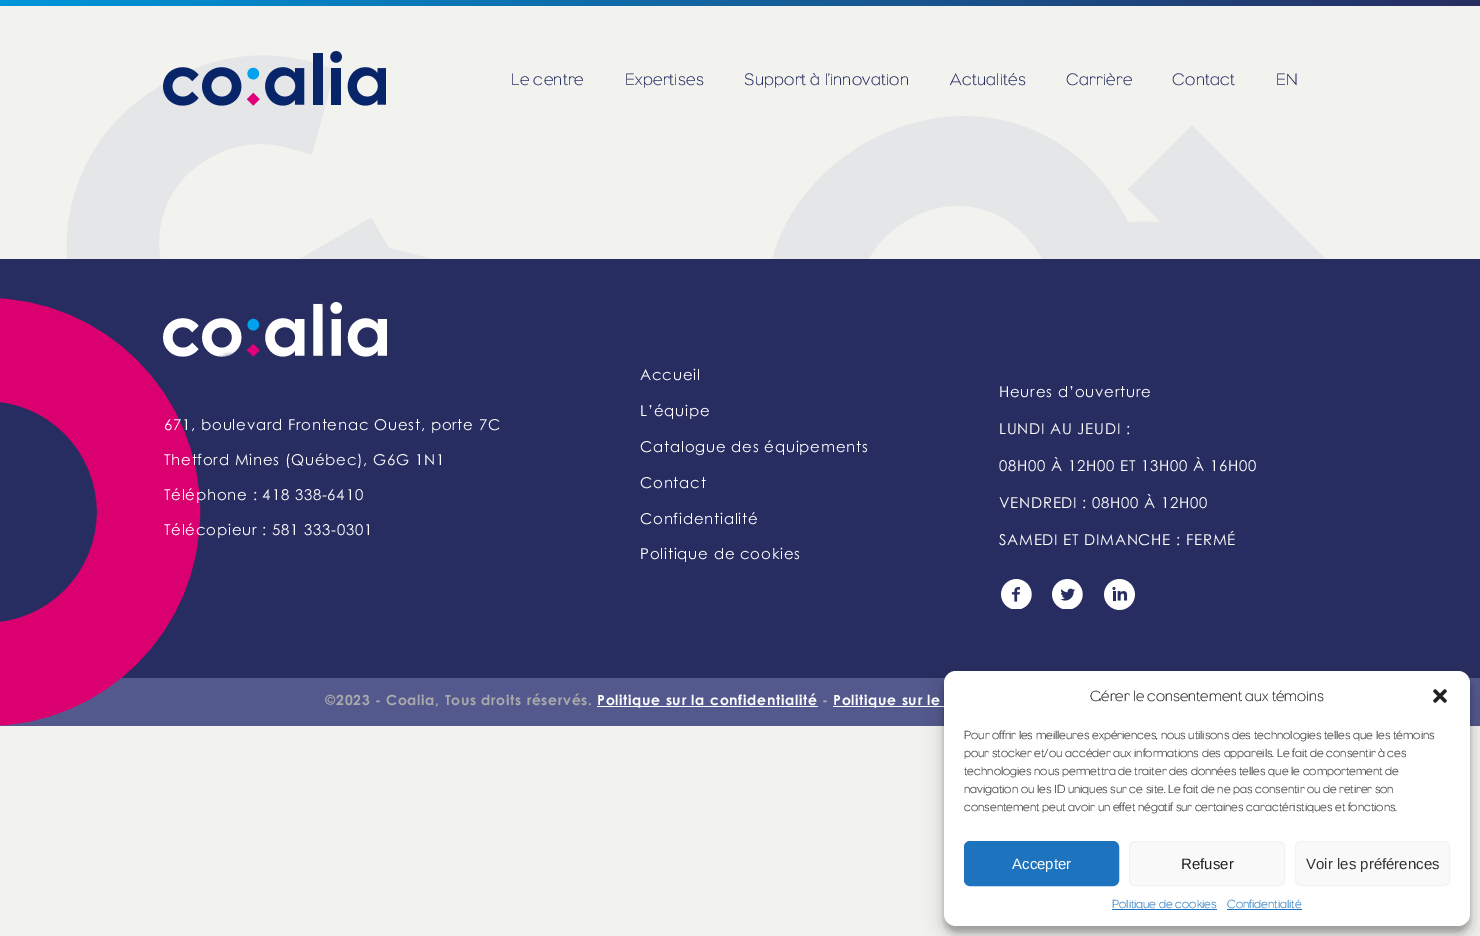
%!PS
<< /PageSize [1480 936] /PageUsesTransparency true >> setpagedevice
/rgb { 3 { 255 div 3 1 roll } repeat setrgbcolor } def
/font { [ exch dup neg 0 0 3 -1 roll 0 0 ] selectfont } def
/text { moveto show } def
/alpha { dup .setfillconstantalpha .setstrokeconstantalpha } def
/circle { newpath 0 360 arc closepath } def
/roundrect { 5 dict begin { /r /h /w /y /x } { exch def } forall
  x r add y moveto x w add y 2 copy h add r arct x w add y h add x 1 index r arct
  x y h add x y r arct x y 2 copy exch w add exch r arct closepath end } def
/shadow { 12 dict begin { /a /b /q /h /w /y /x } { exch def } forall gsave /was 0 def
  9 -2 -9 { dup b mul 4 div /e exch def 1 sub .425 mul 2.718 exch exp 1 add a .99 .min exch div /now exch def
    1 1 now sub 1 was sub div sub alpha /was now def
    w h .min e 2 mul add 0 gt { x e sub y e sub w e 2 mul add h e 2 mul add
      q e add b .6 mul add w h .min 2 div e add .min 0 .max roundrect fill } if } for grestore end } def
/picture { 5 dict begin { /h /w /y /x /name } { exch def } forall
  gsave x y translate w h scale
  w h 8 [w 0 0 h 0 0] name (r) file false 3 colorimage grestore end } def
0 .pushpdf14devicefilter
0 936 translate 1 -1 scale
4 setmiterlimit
242 242 239 rgb
0 0 1480 936 rectfill
gsave 0 0 moveto 1480 0 rlineto 0 6 rlineto -1480 0 rlineto closepath clip newpath
<< /ShadingType 2 /ColorSpace /DeviceRGB /Coords [1480 3 0 3] /Extend [true true] /Function << /FunctionType 2 /Domain [0 1] /C0 [0.157 0.176 0.38] /C1 [0 0.592 0.855] /N 1 >> >> shfill grestore
(img_01.rgb) 66 55 366 204 picture
(img_02.rgb) 163 51 223 55 picture
(img_03.rgb) 299 218 97 41 picture
228 230 231 rgb
1049 465 moveto -38 22 -82 32 -126 26 rcurveto -49 -8 -92 -34 -121 -75 rcurveto -67 -95 -38 -214 62 -272 rcurveto 100 -58 217 -23 266 82 rcurveto 21 46 22 96 4 143 rcurveto -16 41 -47 74 -85 96 rcurveto closepath 1005 389 moveto 20 -11 36 -28 44 -50 rcurveto 9 -24 7 -50 -4 -74 rcurveto -25 -54 -85 -76 -137 -45 rcurveto -20 11 -36 28 -44 49 rcurveto -9 25 -7 51 4 75 rcurveto 25 54 85 75 137 45 rcurveto closepath fill
(img_04.rgb) 1046 125 280 134 picture
40 45 97 rgb
0 259 1480 419 rectfill
84 89 141 rgb
0 678 1480 48 rectfill
218 0 112 rgb
103 setlinewidth
-14 512 162.5 circle stroke
(img_05.rgb) 163 302 224 55 picture
(img_06.rgb) 1001 579 31 30 picture
(img_07.rgb) 1052 579 31 30 picture
(img_08.rgb) 1104 579 31 31 picture
255 255 255 rgb
597 706 221 1 rectfill
833 706 111 1 rectfill
0 0 0 rgb
944 677 526 255 12 3 0.23 shadow
944 681 526 255 12 10 0.19 shadow
255 255 255 rgb
944 671 526 255 12 roundrect fill
(img_09.rgb) 1433 689 14 14 picture
30 115 190 rgb
964.5 841.5 154 44 5.5 roundrect gsave fill grestore
1 setlinewidth
stroke
249 249 249 rgb
1129.5 841.5 155 44 5.5 roundrect gsave fill grestore
242 242 242 rgb
stroke
249 249 249 rgb
1295.5 841.5 154 44 5.5 roundrect gsave fill grestore
242 242 242 rgb
stroke
30 115 190 rgb
1112 909 105 1 rectfill
1227 909 75 1 rectfill
/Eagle-Light 17 font
40 45 97 rgb
511 85 moveto 0.3 0 (Le centre) ashow
625 85 moveto 0.3 0 (Expertises) ashow
744 85 moveto 0.3 0 (Support à l’innovation) ashow
950 85 moveto 0.3 0 (Actualités) ashow
1066 85 moveto 0.3 0 (Carrière) ashow
1172 85 moveto 0.3 0 (Contact) ashow
1276 85 moveto 0.3 0 (EN) ashow
/CenturyGothic-Regular 15 font
255 255 255 rgb
164 430 moveto 0.75 0 (671, boulevard Frontenac Ouest, porte 7C) ashow
164 465 moveto 0.75 0 (Thetford Mines \(Québec\), G6G 1N1) ashow
164 500 moveto 0.75 0 (Téléphone : 418 338-6410) ashow
164 535 moveto 0.75 0 (Télécopieur : 581 333-0301) ashow
640 380 moveto 0.75 0 (Accueil) ashow
640 416 moveto 0.75 0 (L’équipe) ashow
640 452 moveto 0.75 0 (Catalogue des équipements) ashow
640 488 moveto 0.75 0 (Contact) ashow
640 524 moveto 0.75 0 (Confidentialité) ashow
640 559 moveto 0.75 0 (Politique de cookies) ashow
999 397 moveto 0.75 0 (Heures d’ouverture) ashow
999 434 moveto 0.75 0 (LUNDI AU JEUDI :) ashow
999 471 moveto 0.75 0 (08H00 À 12H00 ET 13H00 À 16H00) ashow
999 508 moveto 0.75 0 (VENDREDI : 08H00 À 12H00) ashow
999 545 moveto 0.75 0 (SAMEDI ET DIMANCHE : FERMÉ) ashow
/CenturyGothic-Bold 14 font
170 170 170 rgb
325 705 moveto 0.7 0 (©2023 - Coalia, Tous droits réservés.) ashow
255 255 255 rgb
597 705 moveto 0.7 0 (Politique sur la confidentialité) ashow
170 170 170 rgb
822 705 moveto 0.7 0 (-) ashow
255 255 255 rgb
833 705 moveto 0.7 0 (Politique sur le) ashow
/Eagle-Light 15 font
34 34 34 rgb
(Gérer le consentement aux témoins) 1090 701 text
/Eagle-Light 12 font
(Pour offrir les meilleures expériences, nous utilisons des technologies telles que les témoins) 964 739 text
(pour stocker et/ou accéder aux informations des appareils. Le fait de consentir à ces) 964 757 text
(technologies nous permettra de traiter des données telles que le comportement de) 964 775 text
(navigation ou les ID uniques sur ce site. Le fait de ne pas consentir ou de retirer son) 964 793 text
(consentement peut avoir un effet négatif sur certaines caractéristiques et fonctions.) 964 811 text
/LiberationSans-Regular 15 font
255 255 255 rgb
(Accepter) 1012 869 text
34 34 34 rgb
(Refuser) 1181 869 text
51 51 51 rgb
(Voir les préférences) 1306 869 text
/Eagle-Light 12 font
30 115 190 rgb
(Politique de cookies) 1112 908 text
(Confidentialité) 1227 908 text
.poppdf14devicefilter showpage
